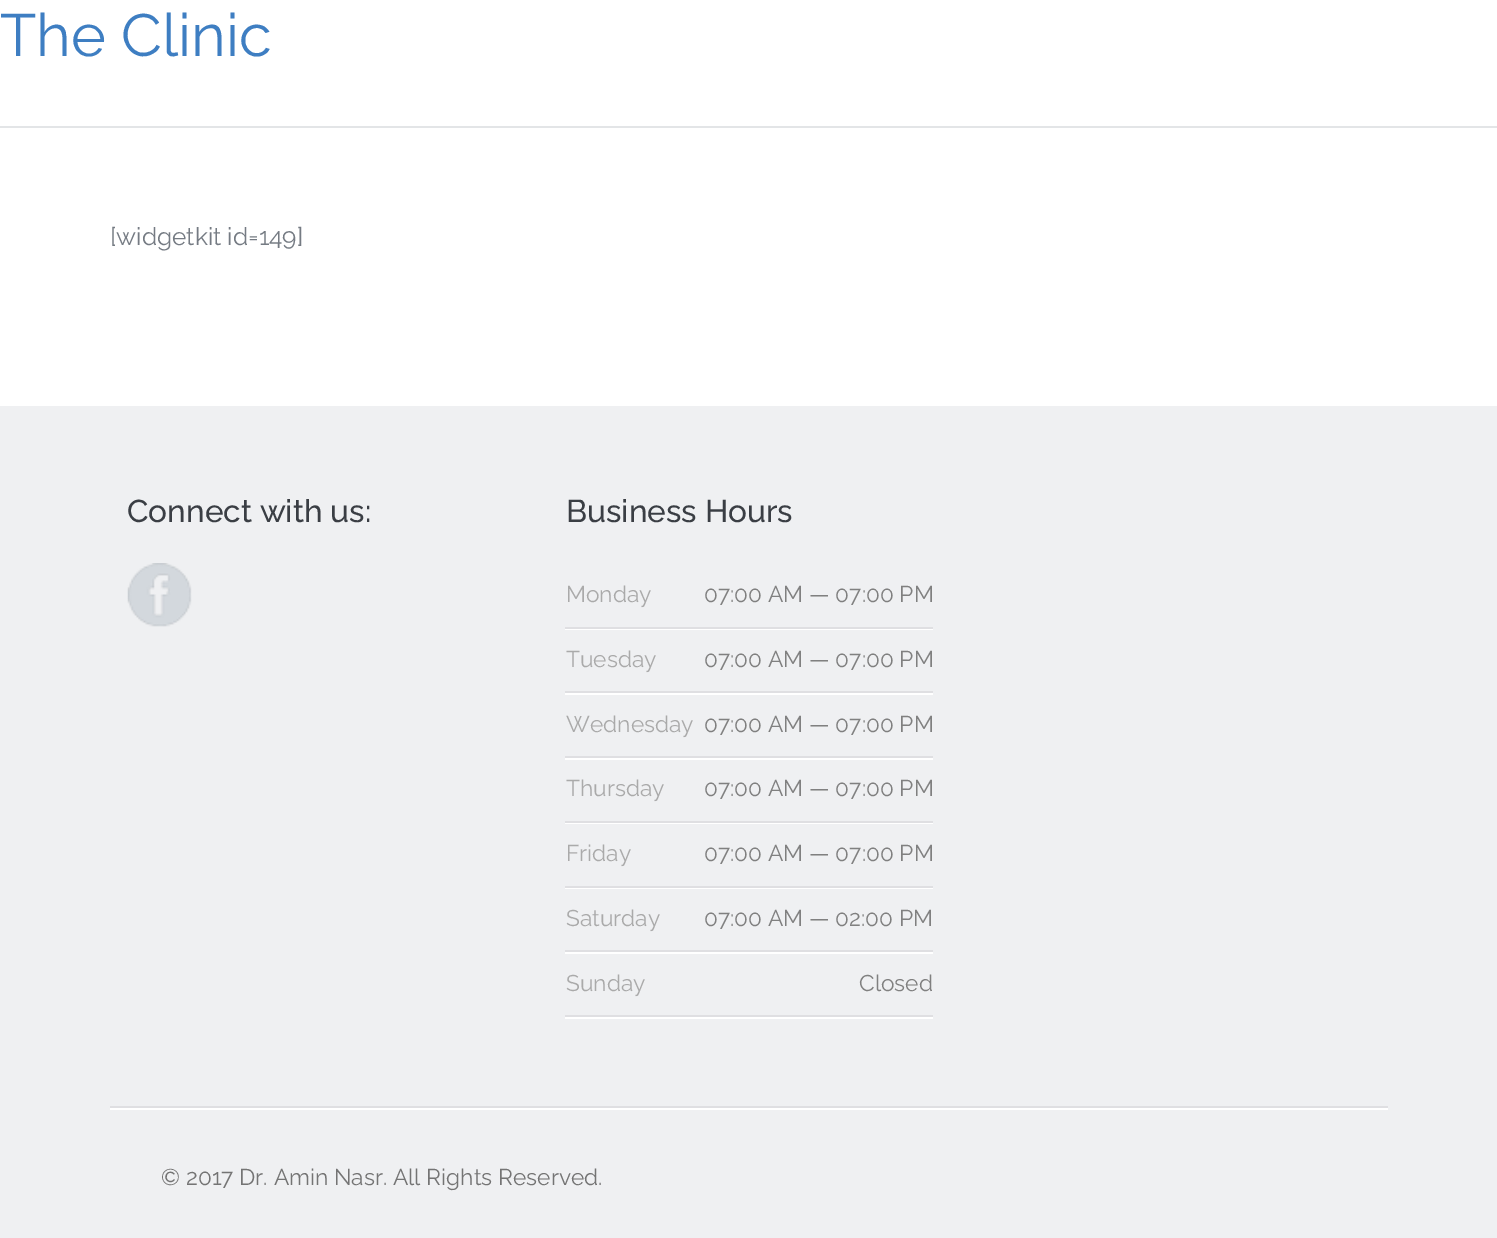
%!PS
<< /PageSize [1497 1238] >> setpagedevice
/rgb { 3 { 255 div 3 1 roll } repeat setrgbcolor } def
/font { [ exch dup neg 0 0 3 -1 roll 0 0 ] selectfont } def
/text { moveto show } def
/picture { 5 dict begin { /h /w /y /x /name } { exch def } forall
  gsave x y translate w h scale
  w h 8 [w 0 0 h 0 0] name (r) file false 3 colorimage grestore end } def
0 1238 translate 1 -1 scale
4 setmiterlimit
255 255 255 rgb
0 0 1497 1238 rectfill
227 229 231 rgb
0 126 1497 2 rectfill
239 240 242 rgb
0 406 1497 832 rectfill
255 255 255 rgb
110 408 moveto 0 702 rlineto 1278 0 rlineto 0 -702 rlineto 0 700 rlineto -1278 0 rlineto closepath fill
223 223 226 rgb
110 1106 1278 2 rectfill
(img_01.rgb) 127 563 65 64 picture
255 255 255 rgb
565 565 moveto 0 65 rlineto 368 0 rlineto 0 -65 rlineto 0 63 rlineto -368 0 rlineto closepath fill
223 223 226 rgb
565 627 368 2 rectfill
255 255 255 rgb
565 630 moveto 0 65 rlineto 368 0 rlineto 0 -65 rlineto 0 63 rlineto -368 0 rlineto closepath fill
223 223 226 rgb
565 691 368 2 rectfill
255 255 255 rgb
565 695 moveto 0 65 rlineto 368 0 rlineto 0 -65 rlineto 0 63 rlineto -368 0 rlineto closepath fill
223 223 226 rgb
565 756 368 2 rectfill
255 255 255 rgb
565 760 moveto 0 64 rlineto 368 0 rlineto 0 -64 rlineto 0 62 rlineto -368 0 rlineto closepath fill
223 223 226 rgb
565 821 368 2 rectfill
255 255 255 rgb
565 824 moveto 0 65 rlineto 368 0 rlineto 0 -65 rlineto 0 63 rlineto -368 0 rlineto closepath fill
223 223 226 rgb
565 886 368 2 rectfill
255 255 255 rgb
565 889 moveto 0 65 rlineto 368 0 rlineto 0 -65 rlineto 0 63 rlineto -368 0 rlineto closepath fill
223 223 226 rgb
565 950 368 2 rectfill
255 255 255 rgb
565 954 moveto 0 65 rlineto 368 0 rlineto 0 -65 rlineto 0 63 rlineto -368 0 rlineto closepath fill
223 223 226 rgb
565 1015 368 2 rectfill
/Raleway-Regular 59.5 font
62 126 194 rgb
(The Clinic) 0 56 text
/Raleway-Regular 24.5 font
117 123 131 rgb
([widgetkit id=149]) 110 245 text
/Raleway-Medium 31.5 font
58 62 68 rgb
(Connect with us:) 127 522 text
(Business Hours) 566 522 text
/Raleway-Regular 22.75 font
170 170 170 rgb
(Monday) 566 602 text
128 128 128 rgb
(07:00 AM — 07:00 PM) 704 602 text
170 170 170 rgb
(Tuesday) 566 667 text
128 128 128 rgb
(07:00 AM — 07:00 PM) 704 667 text
170 170 170 rgb
(Wednesday) 566 732 text
128 128 128 rgb
(07:00 AM — 07:00 PM) 704 732 text
170 170 170 rgb
(Thursday) 566 796 text
128 128 128 rgb
(07:00 AM — 07:00 PM) 704 796 text
170 170 170 rgb
(Friday) 566 861 text
128 128 128 rgb
(07:00 AM — 07:00 PM) 704 861 text
170 170 170 rgb
(Saturday) 566 926 text
128 128 128 rgb
(07:00 AM — 02:00 PM) 704 926 text
170 170 170 rgb
(Sunday) 566 991 text
128 128 128 rgb
(Closed) 859 991 text
116 116 116 rgb
(© 2017 Dr. Amin Nasr. All Rights Reserved.) 161 1185 text
showpage
